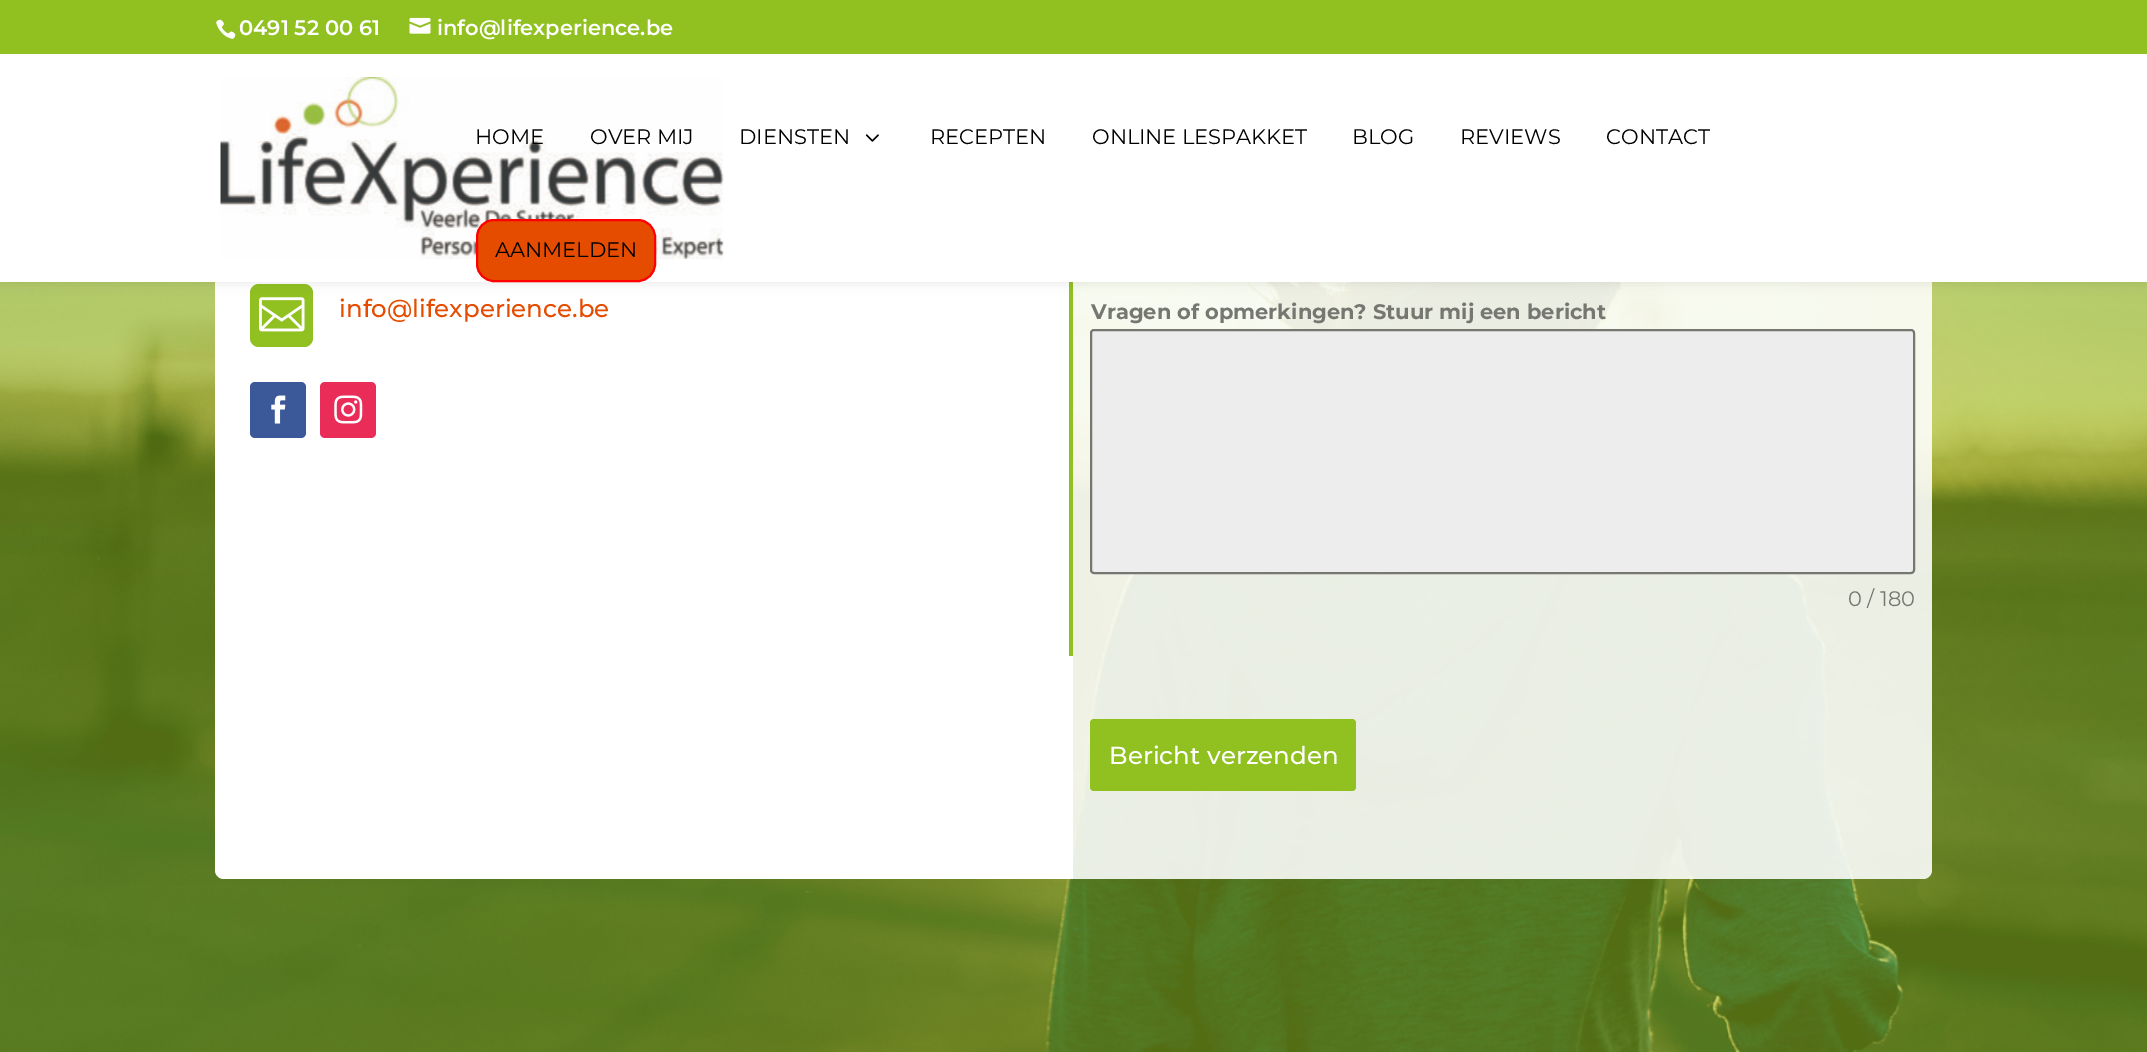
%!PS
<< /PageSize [2147 1052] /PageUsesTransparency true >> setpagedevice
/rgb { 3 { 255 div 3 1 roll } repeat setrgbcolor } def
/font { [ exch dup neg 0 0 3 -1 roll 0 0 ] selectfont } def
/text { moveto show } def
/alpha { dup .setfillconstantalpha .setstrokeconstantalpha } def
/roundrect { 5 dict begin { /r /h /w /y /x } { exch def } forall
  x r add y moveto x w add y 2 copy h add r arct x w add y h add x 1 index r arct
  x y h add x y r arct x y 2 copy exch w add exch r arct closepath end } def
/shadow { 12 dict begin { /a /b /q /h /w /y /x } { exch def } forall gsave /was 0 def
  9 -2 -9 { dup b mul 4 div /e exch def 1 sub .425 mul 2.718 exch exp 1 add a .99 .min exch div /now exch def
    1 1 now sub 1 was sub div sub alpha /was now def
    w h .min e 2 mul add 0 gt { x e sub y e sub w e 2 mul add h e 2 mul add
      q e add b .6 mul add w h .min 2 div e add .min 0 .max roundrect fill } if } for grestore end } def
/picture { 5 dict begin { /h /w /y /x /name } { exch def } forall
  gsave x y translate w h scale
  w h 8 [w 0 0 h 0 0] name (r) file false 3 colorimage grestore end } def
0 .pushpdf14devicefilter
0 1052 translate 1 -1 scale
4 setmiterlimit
255 255 255 rgb
0 0 2147 1052 rectfill
(img_05.rgb) 0 282 2147 770 picture
224 -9 moveto 420 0 rlineto 0 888 rlineto -420 0 rlineto -5 0 -9 -4 -9 -9 rcurveto 0 -870 rlineto 0 -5 4 -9 9 -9 rcurveto closepath fill
145 192 33 rgb
259 284 moveto -5 0 -9 4 -9 9 rcurveto 0 45 rlineto 0 5 4 9 9 9 rcurveto 45 0 rlineto 5 0 9 -4 9 -9 rcurveto 0 -45 rlineto 0 -5 -4 -9 -9 -9 rcurveto closepath fill
(img_06.rgb) 259 297 46 35 picture
255 255 255 rgb
644 282 429 597 rectfill
145 192 33 rgb
1069 282 4 374 rectfill
0.88 alpha
255 255 255 rgb
1073 -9 moveto 850 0 rlineto 5 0 9 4 9 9 rcurveto 0 870 rlineto 0 5 -4 9 -9 9 rcurveto -850 0 rlineto closepath fill
1 alpha
0 0 0 rgb
0 54 2147 228 0 6 0.1 shadow
145 192 33 rgb
0 0 2147 54 rectfill
(img_01.rgb) 216 19 20 20 picture
(img_02.rgb) 409 17 22 17 picture
255 255 255 rgb
0 54 2147 228 rectfill
(img_03.rgb) 220 77 504 182 picture
(img_04.rgb) 865 134 14 8 picture
229 76 0 rgb
477 220 178 61 17 roundrect gsave fill grestore
255 0 0 rgb
2 setlinewidth
stroke
59 89 152 rgb
250 382 56 56 5 roundrect fill
(img_07.rgb) 271 395 15 29 picture
234 44 89 rgb
320 382 56 56 5 roundrect fill
(img_08.rgb) 334 395 29 29 picture
237 237 237 rgb
1091 330 823 243 3 roundrect gsave fill grestore
119 119 113 rgb
stroke
145 192 33 rgb
1090 719 266 72 4 roundrect fill
/Montserrat-SemiBold 21 font
255 255 255 rgb
(0491 52 00 61) 239 35 text
(info@lifexperience.be) 437 35 text
/Montserrat-Regular 21 font
0 0 0 rgb
(HOME) 475 144 text
(OVER MIJ) 590 144 text
(DIENSTEN) 739 144 text
(RECEPTEN) 930 144 text
(ONLINE LESPAKKET) 1092 144 text
(BLOG) 1352 144 text
(REVIEWS) 1460 144 text
(CONTACT) 1606 144 text
(AANMELDEN) 495 257 text
/Montserrat-Medium 24.5 font
229 76 0 rgb
(info@lifexperience.be) 339 317 text
/Montserrat-Bold 21 font
119 119 113 rgb
(Vragen of opmerkingen? Stuur mij een bericht) 1091 319 text
/Montserrat-Regular 21 font
(0 / 180) 1848 606 text
/Montserrat-Medium 24.5 font
255 255 255 rgb
(Bericht verzenden) 1109 764 text
.poppdf14devicefilter showpage
